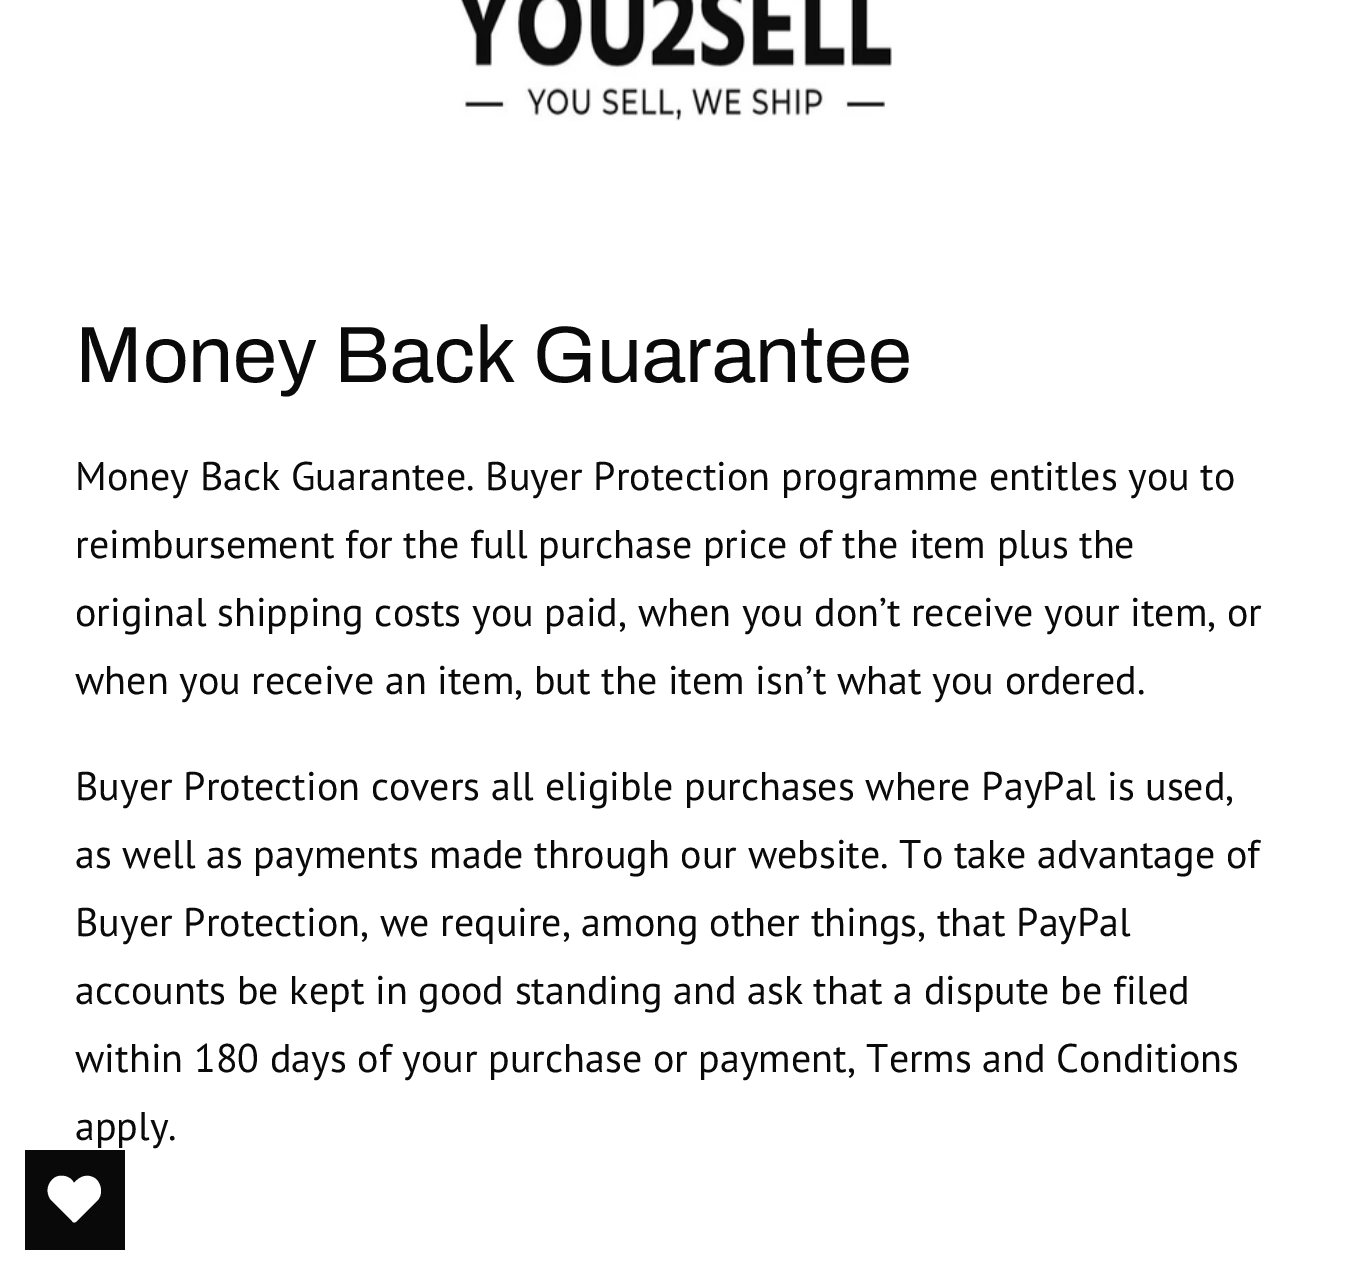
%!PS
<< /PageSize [1349 1274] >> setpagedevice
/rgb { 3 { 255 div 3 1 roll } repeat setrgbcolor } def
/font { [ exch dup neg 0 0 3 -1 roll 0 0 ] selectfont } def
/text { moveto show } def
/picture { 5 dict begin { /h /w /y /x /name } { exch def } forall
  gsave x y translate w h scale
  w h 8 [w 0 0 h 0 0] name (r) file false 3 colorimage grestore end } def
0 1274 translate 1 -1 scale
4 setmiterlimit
255 255 255 rgb
0 0 1349 1274 rectfill
(img_01.rgb) 459 0 433 121 picture
10 9 10 rgb
25 1150 100 100 rectfill
255 255 255 rgb
96 1179 moveto -8 -6 -16 -3 -22 4 rcurveto -2 -3 rlineto -5 -5 -14 -6 -19 -1 rcurveto -7 6 -7 16 -1 22 rcurveto 20 20 rlineto 1 2 3 2 5 0 rcurveto 20 -20 rlineto 6 -6 5 -16 -1 -22 rcurveto closepath fill
/Archivo-Regular 80 font
10 10 10 rgb
(Money Back Guarantee) 75 382 text
/PTSans-Regular 40 font
(Money Back Guarantee. Buyer Protection programme entitles you to) 75 490 text
(reimbursement for the full purchase price of the item plus the) 75 558 text
(original shipping costs you paid, when you don’t receive your item, or) 75 626 text
(when you receive an item, but the item isn’t what you ordered.) 75 694 text
(Buyer Protection covers all eligible purchases where PayPal is used,) 75 800 text
(as well as payments made through our website. To take advantage of) 75 868 text
(Buyer Protection, we require, among other things, that PayPal) 75 936 text
(accounts be kept in good standing and ask that a dispute be filed) 75 1004 text
(within 180 days of your purchase or payment, Terms and Conditions) 75 1072 text
(apply.) 75 1140 text
showpage
